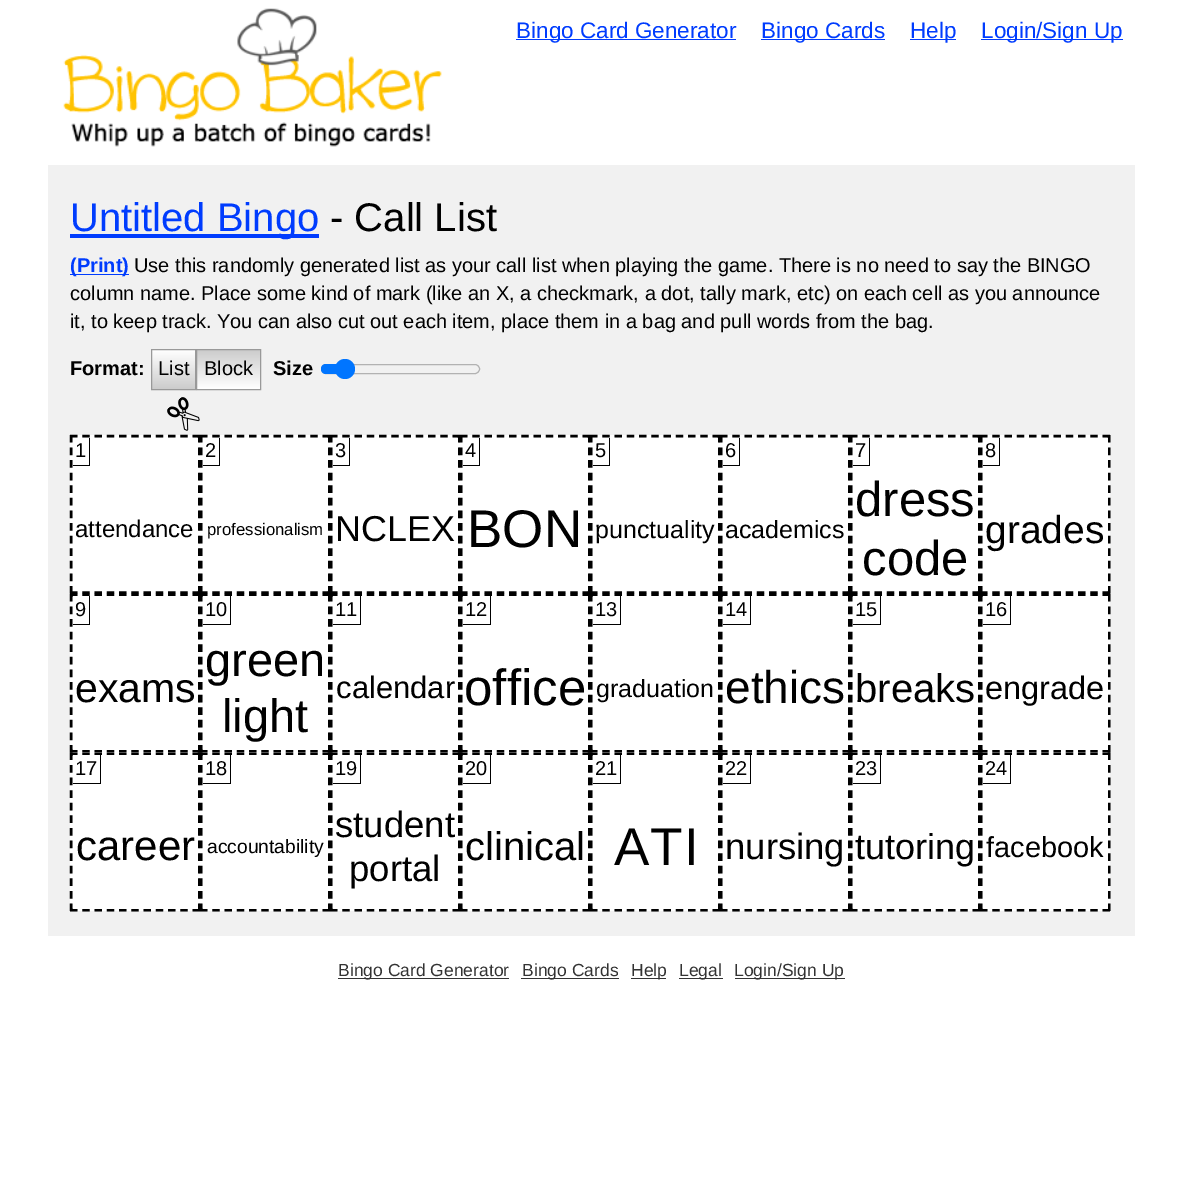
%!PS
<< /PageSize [1182 1203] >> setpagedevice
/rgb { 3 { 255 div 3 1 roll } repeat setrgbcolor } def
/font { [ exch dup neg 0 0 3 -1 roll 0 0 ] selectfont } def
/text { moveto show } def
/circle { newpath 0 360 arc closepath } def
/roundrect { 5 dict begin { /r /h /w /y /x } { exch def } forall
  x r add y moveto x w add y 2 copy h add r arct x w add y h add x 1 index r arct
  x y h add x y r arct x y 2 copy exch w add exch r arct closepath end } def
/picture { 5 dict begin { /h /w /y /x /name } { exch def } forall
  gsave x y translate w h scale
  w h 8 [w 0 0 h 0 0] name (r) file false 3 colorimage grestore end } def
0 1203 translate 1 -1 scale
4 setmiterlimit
255 255 255 rgb
0 0 1182 1203 rectfill
(img_01.rgb) 63 8 379 139 picture
0 60 254 rgb
516 39 220 1 rectfill
761 39 124 1 rectfill
910 39 46 1 rectfill
981 39 142 1 rectfill
241 241 241 rgb
48 165 1087 771 rectfill
0 60 254 rgb
70 234 249 4 rectfill
70 274 59 1 rectfill
gsave 152 350 moveto 43 0 rlineto 0 39 rlineto -43 0 rlineto closepath clip newpath
<< /ShadingType 2 /ColorSpace /DeviceRGB /Coords [174 389 174 350] /Extend [true true] /Function << /FunctionType 2 /Domain [0 1] /C0 [0.8 0.8 0.8] /C1 [1 1 1] /N 1 >> >> shfill grestore
153 153 153 rgb
151.5 349.5 44 40 rectstroke
gsave 197 350 moveto 63 0 rlineto 0 39 rlineto -63 0 rlineto closepath clip newpath
<< /ShadingType 2 /ColorSpace /DeviceRGB /Coords [229 389 229 350] /Extend [true true] /Function << /FunctionType 2 /Domain [0 1] /C0 [1 1 1] /C1 [0.8 0.8 0.8] /N 1 >> >> shfill grestore
196.5 349.5 64 40 rectstroke
178 178 178 rgb
321.5 364.5 158 9 4.5 roundrect stroke
0 117 255 rgb
326 364 moveto 19 0 rlineto 0 10 rlineto -19 0 rlineto -3 0 -5 -2 -5 -5 rcurveto 0 -3 2 -5 5 -5 rcurveto closepath fill
345 369 10 circle fill
(img_02.rgb) 167 397 33 34 picture
255 255 255 rgb
70 435 130 476 rectfill
0 0 0 rgb
2.5 setlinewidth
[7.5 4.75] 0 setdash
70 436 moveto 130 0 rlineto stroke
[7.5 5.1] 0 setdash
199 435 moveto 0 159 rlineto stroke
[7.5 4.75] 0 setdash
70 592.5 moveto 130 0 rlineto stroke
[7.5 5.1] 0 setdash
71 435 moveto 0 159 rlineto stroke
255 255 255 rgb
197 438 1 28 rectfill
0 0 0 rgb
89 438 1 28 rectfill
73 465 17 1 rectfill
255 255 255 rgb
197 466 1 125 rectfill
200 435 130 159 rectfill
0 0 0 rgb
[7.5 4.75] 0 setdash
200 436 moveto 130 0 rlineto stroke
[7.5 5.1] 0 setdash
329 435 moveto 0 159 rlineto stroke
[7.5 4.75] 0 setdash
200 592.5 moveto 130 0 rlineto stroke
[7.5 5.1] 0 setdash
201 435 moveto 0 159 rlineto stroke
255 255 255 rgb
327 438 1 28 rectfill
0 0 0 rgb
219 438 1 28 rectfill
203 465 17 1 rectfill
255 255 255 rgb
327 466 1 125 rectfill
330 435 130 159 rectfill
0 0 0 rgb
[7.5 4.75] 0 setdash
330 436 moveto 130 0 rlineto stroke
[7.5 5.1] 0 setdash
459 435 moveto 0 159 rlineto stroke
[7.5 4.75] 0 setdash
330 592.5 moveto 130 0 rlineto stroke
[7.5 5.1] 0 setdash
331 435 moveto 0 159 rlineto stroke
255 255 255 rgb
457 438 1 153 rectfill
0 0 0 rgb
349 438 1 28 rectfill
333 465 17 1 rectfill
255 255 255 rgb
460 435 130 159 rectfill
0 0 0 rgb
[7.5 4.75] 0 setdash
460 436 moveto 130 0 rlineto stroke
[7.5 5.1] 0 setdash
589 435 moveto 0 159 rlineto stroke
[7.5 4.75] 0 setdash
460 592.5 moveto 130 0 rlineto stroke
[7.5 5.1] 0 setdash
461 435 moveto 0 159 rlineto stroke
255 255 255 rgb
587 438 1 153 rectfill
0 0 0 rgb
479 438 1 28 rectfill
463 465 17 1 rectfill
255 255 255 rgb
590 435 130 159 rectfill
0 0 0 rgb
[7.5 4.75] 0 setdash
590 436 moveto 130 0 rlineto stroke
[7.5 5.1] 0 setdash
719 435 moveto 0 159 rlineto stroke
[7.5 4.75] 0 setdash
590 592.5 moveto 130 0 rlineto stroke
[7.5 5.1] 0 setdash
591 435 moveto 0 159 rlineto stroke
255 255 255 rgb
717 438 1 153 rectfill
0 0 0 rgb
609 438 1 28 rectfill
593 465 17 1 rectfill
255 255 255 rgb
720 435 130 159 rectfill
0 0 0 rgb
[7.5 4.75] 0 setdash
720 436 moveto 130 0 rlineto stroke
[7.5 5.1] 0 setdash
849 435 moveto 0 159 rlineto stroke
[7.5 4.75] 0 setdash
720 592.5 moveto 130 0 rlineto stroke
[7.5 5.1] 0 setdash
721 435 moveto 0 159 rlineto stroke
255 255 255 rgb
847 438 1 153 rectfill
0 0 0 rgb
739 438 1 28 rectfill
723 465 17 1 rectfill
255 255 255 rgb
850 435 130 159 rectfill
0 0 0 rgb
[7.5 4.75] 0 setdash
850 436 moveto 130 0 rlineto stroke
[7.5 5.1] 0 setdash
979 435 moveto 0 159 rlineto stroke
[7.5 4.75] 0 setdash
850 592.5 moveto 130 0 rlineto stroke
[7.5 5.1] 0 setdash
851 435 moveto 0 159 rlineto stroke
255 255 255 rgb
977 438 1 153 rectfill
0 0 0 rgb
869 438 1 28 rectfill
853 465 17 1 rectfill
255 255 255 rgb
980 435 130 159 rectfill
0 0 0 rgb
[7.5 4.75] 0 setdash
980 436 moveto 130 0 rlineto stroke
[7.5 5.1] 0 setdash
1109 435 moveto 0 159 rlineto stroke
[7.5 4.75] 0 setdash
980 592.5 moveto 130 0 rlineto stroke
[7.5 5.1] 0 setdash
981 435 moveto 0 159 rlineto stroke
255 255 255 rgb
1107 438 1 153 rectfill
0 0 0 rgb
999 438 1 28 rectfill
983 465 17 1 rectfill
[7.5 4.75] 0 setdash
70 595 moveto 130 0 rlineto stroke
[7.5 5.1] 0 setdash
199 594 moveto 0 158.5 rlineto stroke
[7.5 4.75] 0 setdash
70 751 moveto 130 0 rlineto stroke
[7.5 5.1] 0 setdash
71 594 moveto 0 158.5 rlineto stroke
255 255 255 rgb
73 596 125 154 rectfill
0 0 0 rgb
89 596 1 29 rectfill
73 624 17 1 rectfill
255 255 255 rgb
200 594 130 159 rectfill
0 0 0 rgb
[7.5 4.75] 0 setdash
200 595 moveto 130 0 rlineto stroke
[7.5 5.1] 0 setdash
329 594 moveto 0 158.5 rlineto stroke
[7.5 4.75] 0 setdash
200 751 moveto 130 0 rlineto stroke
[7.5 5.1] 0 setdash
201 594 moveto 0 158.5 rlineto stroke
255 255 255 rgb
203 596 125 154 rectfill
0 0 0 rgb
230 596 1 29 rectfill
203 624 28 1 rectfill
255 255 255 rgb
330 594 130 159 rectfill
0 0 0 rgb
[7.5 4.75] 0 setdash
330 595 moveto 130 0 rlineto stroke
[7.5 5.1] 0 setdash
459 594 moveto 0 158.5 rlineto stroke
[7.5 4.75] 0 setdash
330 751 moveto 130 0 rlineto stroke
[7.5 5.1] 0 setdash
331 594 moveto 0 158.5 rlineto stroke
255 255 255 rgb
333 596 125 154 rectfill
0 0 0 rgb
360 596 1 29 rectfill
333 624 28 1 rectfill
255 255 255 rgb
460 594 130 159 rectfill
0 0 0 rgb
[7.5 4.75] 0 setdash
460 595 moveto 130 0 rlineto stroke
[7.5 5.1] 0 setdash
589 594 moveto 0 158.5 rlineto stroke
[7.5 4.75] 0 setdash
460 751 moveto 130 0 rlineto stroke
[7.5 5.1] 0 setdash
461 594 moveto 0 158.5 rlineto stroke
255 255 255 rgb
463 596 125 154 rectfill
0 0 0 rgb
490 596 1 29 rectfill
463 624 28 1 rectfill
255 255 255 rgb
590 594 130 159 rectfill
0 0 0 rgb
[7.5 4.75] 0 setdash
590 595 moveto 130 0 rlineto stroke
[7.5 5.1] 0 setdash
719 594 moveto 0 158.5 rlineto stroke
[7.5 4.75] 0 setdash
590 751 moveto 130 0 rlineto stroke
[7.5 5.1] 0 setdash
591 594 moveto 0 158.5 rlineto stroke
255 255 255 rgb
593 596 125 154 rectfill
0 0 0 rgb
620 596 1 29 rectfill
593 624 28 1 rectfill
255 255 255 rgb
720 594 130 159 rectfill
0 0 0 rgb
[7.5 4.75] 0 setdash
720 595 moveto 130 0 rlineto stroke
[7.5 5.1] 0 setdash
849 594 moveto 0 158.5 rlineto stroke
[7.5 4.75] 0 setdash
720 751 moveto 130 0 rlineto stroke
[7.5 5.1] 0 setdash
721 594 moveto 0 158.5 rlineto stroke
255 255 255 rgb
723 596 125 154 rectfill
0 0 0 rgb
750 596 1 29 rectfill
723 624 28 1 rectfill
255 255 255 rgb
850 594 130 159 rectfill
0 0 0 rgb
[7.5 4.75] 0 setdash
850 595 moveto 130 0 rlineto stroke
[7.5 5.1] 0 setdash
979 594 moveto 0 158.5 rlineto stroke
[7.5 4.75] 0 setdash
850 751 moveto 130 0 rlineto stroke
[7.5 5.1] 0 setdash
851 594 moveto 0 158.5 rlineto stroke
255 255 255 rgb
853 596 125 154 rectfill
0 0 0 rgb
880 596 1 29 rectfill
853 624 28 1 rectfill
255 255 255 rgb
980 594 130 159 rectfill
0 0 0 rgb
[7.5 4.75] 0 setdash
980 595 moveto 130 0 rlineto stroke
[7.5 5.1] 0 setdash
1109 594 moveto 0 158.5 rlineto stroke
[7.5 4.75] 0 setdash
980 751 moveto 130 0 rlineto stroke
[7.5 5.1] 0 setdash
981 594 moveto 0 158.5 rlineto stroke
255 255 255 rgb
983 596 125 154 rectfill
0 0 0 rgb
1010 596 1 29 rectfill
983 624 28 1 rectfill
[7.5 4.75] 0 setdash
70 754 moveto 130 0 rlineto stroke
[7.5 5.1] 0 setdash
199 752.5 moveto 0 158.5 rlineto stroke
[7.5 4.75] 0 setdash
70 910 moveto 130 0 rlineto stroke
[7.5 5.1] 0 setdash
71 752.5 moveto 0 158.5 rlineto stroke
255 255 255 rgb
73 755 125 154 rectfill
0 0 0 rgb
100 755 1 29 rectfill
73 783 28 1 rectfill
255 255 255 rgb
200 753 130 158 rectfill
0 0 0 rgb
[7.5 4.75] 0 setdash
200 754 moveto 130 0 rlineto stroke
[7.5 5.1] 0 setdash
329 752.5 moveto 0 158.5 rlineto stroke
[7.5 4.75] 0 setdash
200 910 moveto 130 0 rlineto stroke
[7.5 5.1] 0 setdash
201 752.5 moveto 0 158.5 rlineto stroke
255 255 255 rgb
203 755 125 154 rectfill
0 0 0 rgb
230 755 1 29 rectfill
203 783 28 1 rectfill
255 255 255 rgb
330 753 130 158 rectfill
0 0 0 rgb
[7.5 4.75] 0 setdash
330 754 moveto 130 0 rlineto stroke
[7.5 5.1] 0 setdash
459 752.5 moveto 0 158.5 rlineto stroke
[7.5 4.75] 0 setdash
330 910 moveto 130 0 rlineto stroke
[7.5 5.1] 0 setdash
331 752.5 moveto 0 158.5 rlineto stroke
255 255 255 rgb
333 755 125 154 rectfill
0 0 0 rgb
360 755 1 29 rectfill
333 783 28 1 rectfill
255 255 255 rgb
460 753 130 158 rectfill
0 0 0 rgb
[7.5 4.75] 0 setdash
460 754 moveto 130 0 rlineto stroke
[7.5 5.1] 0 setdash
589 752.5 moveto 0 158.5 rlineto stroke
[7.5 4.75] 0 setdash
460 910 moveto 130 0 rlineto stroke
[7.5 5.1] 0 setdash
461 752.5 moveto 0 158.5 rlineto stroke
255 255 255 rgb
463 755 125 154 rectfill
0 0 0 rgb
490 755 1 29 rectfill
463 783 28 1 rectfill
255 255 255 rgb
590 753 130 158 rectfill
0 0 0 rgb
[7.5 4.75] 0 setdash
590 754 moveto 130 0 rlineto stroke
[7.5 5.1] 0 setdash
719 752.5 moveto 0 158.5 rlineto stroke
[7.5 4.75] 0 setdash
590 910 moveto 130 0 rlineto stroke
[7.5 5.1] 0 setdash
591 752.5 moveto 0 158.5 rlineto stroke
255 255 255 rgb
593 755 125 154 rectfill
0 0 0 rgb
620 755 1 29 rectfill
593 783 28 1 rectfill
255 255 255 rgb
720 753 130 158 rectfill
0 0 0 rgb
[7.5 4.75] 0 setdash
720 754 moveto 130 0 rlineto stroke
[7.5 5.1] 0 setdash
849 752.5 moveto 0 158.5 rlineto stroke
[7.5 4.75] 0 setdash
720 910 moveto 130 0 rlineto stroke
[7.5 5.1] 0 setdash
721 752.5 moveto 0 158.5 rlineto stroke
255 255 255 rgb
723 755 125 154 rectfill
0 0 0 rgb
750 755 1 29 rectfill
723 783 28 1 rectfill
255 255 255 rgb
850 753 130 158 rectfill
0 0 0 rgb
[7.5 4.75] 0 setdash
850 754 moveto 130 0 rlineto stroke
[7.5 5.1] 0 setdash
979 752.5 moveto 0 158.5 rlineto stroke
[7.5 4.75] 0 setdash
850 910 moveto 130 0 rlineto stroke
[7.5 5.1] 0 setdash
851 752.5 moveto 0 158.5 rlineto stroke
255 255 255 rgb
853 755 125 154 rectfill
0 0 0 rgb
880 755 1 29 rectfill
853 783 28 1 rectfill
255 255 255 rgb
980 753 130 158 rectfill
0 0 0 rgb
[7.5 4.75] 0 setdash
980 754 moveto 130 0 rlineto stroke
[7.5 5.1] 0 setdash
1109 752.5 moveto 0 158.5 rlineto stroke
[7.5 4.75] 0 setdash
980 910 moveto 130 0 rlineto stroke
[7.5 5.1] 0 setdash
981 752.5 moveto 0 158.5 rlineto stroke
255 255 255 rgb
983 755 125 154 rectfill
0 0 0 rgb
1010 755 1 29 rectfill
983 783 28 1 rectfill
51 51 51 rgb
338 978 171 1 rectfill
521 978 98 1 rectfill
631 978 35 1 rectfill
679 978 44 1 rectfill
735 978 110 1 rectfill
/LiberationSans-Regular 22.5 font
0 60 254 rgb
(Bingo Card Generator) 516 38 text
(Bingo Cards) 761 38 text
(Help) 910 38 text
(Login/Sign Up) 981 38 text
/LiberationSans-Regular 40 font
(Untitled Bingo) 70 231 text
0 0 0 rgb
(- Call List) 330 231 text
/LiberationSans-Bold 20 font
0 60 254 rgb
(\(Print\)) 70 272 text
/LiberationSans-Regular 20 font
0 0 0 rgb
(Use this randomly generated list as your call list when playing the game. There is no need to say the BINGO) 134 272 text
(column name. Place some kind of mark \(like an X, a checkmark, a dot, tally mark, etc\) on each cell as you announce) 70 300 text
(it, to keep track. You can also cut out each item, place them in a bag and pull words from the bag.) 70 328 text
/LiberationSans-Bold 20 font
(Format:) 70 375 text
/LiberationSans-Regular 20 font
(List) 158 375 text
(Block) 204 375 text
/LiberationSans-Bold 20 font
(Size) 273 375 text
/LiberationSans-Regular 20 font
(1) 75 457 text
/LiberationSans-Regular 24 font
(attendance) 75 537 text
/LiberationSans-Regular 20 font
(2) 205 457 text
/LiberationSans-Regular 16.75 font
(professionalism) 207 535 text
/LiberationSans-Regular 20 font
(3) 335 457 text
/LiberationSans-Regular 36 font
(NCLEX) 335 541 text
/LiberationSans-Regular 20 font
(4) 465 457 text
/LiberationSans-Regular 53 font
(BON) 467 547 text
/LiberationSans-Regular 20 font
(5) 595 457 text
/LiberationSans-Regular 25 font
(punctuality) 595 538 text
/LiberationSans-Regular 20 font
(6) 725 457 text
/LiberationSans-Regular 25 font
(academics) 725 538 text
/LiberationSans-Regular 20 font
(7) 855 457 text
/LiberationSans-Regular 49 font
(dress) 855 516 text
(code) 862 575 text
/LiberationSans-Regular 20 font
(8) 985 457 text
/LiberationSans-Regular 39 font
(grades) 985 543 text
/LiberationSans-Regular 20 font
(9) 75 616 text
/LiberationSans-Regular 41 font
(exams) 75 702 text
/LiberationSans-Regular 20 font
(10) 205 616 text
/LiberationSans-Regular 47 font
(green) 205 676 text
(light) 222 732 text
/LiberationSans-Regular 20 font
(11) 335 616 text
/LiberationSans-Regular 31 font
(calendar) 336 698 text
/LiberationSans-Regular 20 font
(12) 465 616 text
/LiberationSans-Regular 51 font
(office) 464 705 text
/LiberationSans-Regular 20 font
(13) 595 616 text
/LiberationSans-Regular 25 font
(graduation) 596 697 text
/LiberationSans-Regular 20 font
(14) 725 616 text
/LiberationSans-Regular 46 font
(ethics) 725 703 text
/LiberationSans-Regular 20 font
(15) 855 616 text
/LiberationSans-Regular 40 font
(breaks) 855 702 text
/LiberationSans-Regular 20 font
(16) 985 616 text
/LiberationSans-Regular 32.5 font
(engrade) 985 699 text
/LiberationSans-Regular 20 font
(17) 75 775 text
/LiberationSans-Regular 42 font
(career) 76 860 text
/LiberationSans-Regular 20 font
(18) 205 775 text
/LiberationSans-Regular 19.25 font
(accountability) 207 853 text
/LiberationSans-Regular 20 font
(19) 335 775 text
/LiberationSans-Regular 36.5 font
(student) 335 837 text
(portal) 349 881 text
/LiberationSans-Regular 20 font
(20) 465 775 text
/LiberationSans-Regular 40 font
(clinical) 465 860 text
/LiberationSans-Regular 20 font
(21) 595 775 text
/LiberationSans-Regular 53 font
614 865 moveto 1 0 (ATI) ashow
/LiberationSans-Regular 20 font
(22) 725 775 text
/LiberationSans-Regular 36.5 font
(nursing) 725 859 text
/LiberationSans-Regular 20 font
(23) 855 775 text
/LiberationSans-Regular 36 font
(tutoring) 855 859 text
/LiberationSans-Regular 20 font
(24) 985 775 text
/LiberationSans-Regular 29 font
(facebook) 986 857 text
/LiberationSans-Regular 17.5 font
51 51 51 rgb
(Bingo Card Generator) 338 976 text
(Bingo Cards) 522 976 text
(Help) 631 976 text
(Legal) 679 976 text
(Login/Sign Up) 734 976 text
showpage
